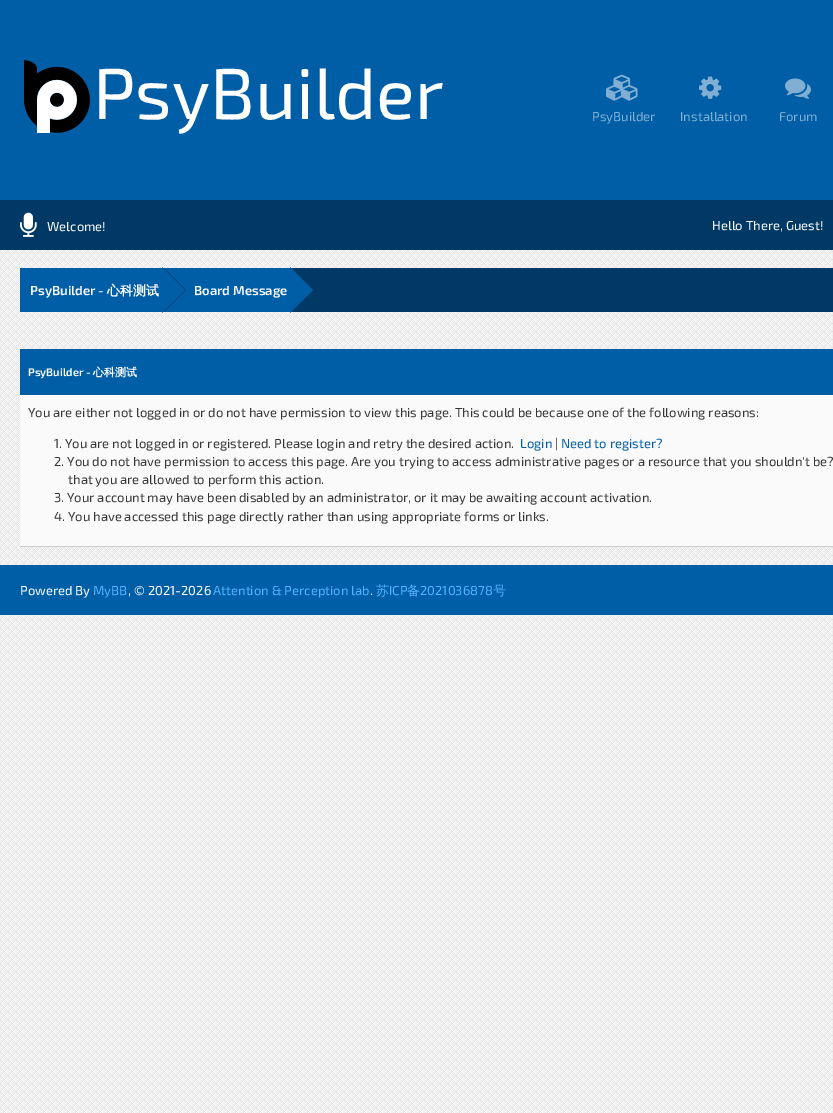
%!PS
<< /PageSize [833 1113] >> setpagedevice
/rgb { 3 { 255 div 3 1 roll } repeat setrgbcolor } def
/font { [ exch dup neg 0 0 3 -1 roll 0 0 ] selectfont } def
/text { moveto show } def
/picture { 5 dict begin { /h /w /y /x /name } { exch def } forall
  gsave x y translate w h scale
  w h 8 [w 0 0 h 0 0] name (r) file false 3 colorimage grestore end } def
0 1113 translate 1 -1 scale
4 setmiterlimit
239 239 239 rgb
0 0 833 1113 rectfill
(img_01.rgb) 0 250 833 863 picture
0 94 167 rgb
0 0 833 200 rectfill
(img_02.rgb) 24 60 66 73 picture
(img_03.rgb) 606 74 32 27 picture
(img_04.rgb) 699 76 23 23 picture
(img_05.rgb) 785 78 26 21 picture
0 57 101 rgb
0 200 833 50 rectfill
(img_06.rgb) 20 212 17 25 picture
292 268 541 44 rectfill
0 94 167 rgb
20 268 272 44 rectfill
0 60 109 rgb
164 312 moveto 0 -44 rlineto 22 22 rlineto closepath fill
0 94 167 rgb
162 313 moveto 0 -46 rlineto 23 23 rlineto closepath fill
0 60 109 rgb
292 312 moveto 0 -44 rlineto 22 22 rlineto closepath fill
0 94 167 rgb
290 313 moveto 0 -46 rlineto 23 23 rlineto closepath fill
20 349 813 46 rectfill
250 250 250 rgb
20 395 813 151 rectfill
204 204 204 rgb
20 546 813 1 rectfill
0 94 167 rgb
0 565 833 50 rectfill
/Exo2-Regular 72 font
255 255 255 rgb
(PsyBuilder) 93 119 text
/Exo2-Regular 13 font
128 175 211 rgb
(PsyBuilder) 592 121 text
(Installation) 680 121 text
(Forum) 779 121 text
255 255 255 rgb
(Welcome!) 47 231 text
(Hello There, Guest!) 712 230 text
/Exo2-SemiBold 13 font
(PsyBuilder -) 30 295 text
/WenQuanYiZenHei-Bold 13 font
(心科测试) 107 295 text
/Exo2-SemiBold 13 font
(Board Message) 194 295 text
/Exo2-SemiBold 11 font
(PsyBuilder -) 28 376 text
/WenQuanYiZenHei-Bold 11 font
(心科测试) 93 376 text
/Exo2-Regular 13 font
54 54 54 rgb
(You are either not logged in or do not have permission to view this page. This could be because one of the following reasons:) 28 417 text
(1. You are not logged in or registered. Please login and retry the desired action.) 54 448 text
0 94 167 rgb
(Login) 520 448 text
54 54 54 rgb
(|) 555 448 text
0 94 167 rgb
(Need to register?) 561 448 text
54 54 54 rgb
(2. You do not have permission to access this page. Are you trying to access administrative pages or a resource that you shouldn't be?) 54 466 text
(that you are allowed to perform this action.) 68 484 text
(3. Your account may have been disabled by an administrator, or it may be awaiting account activation.) 54 502 text
(4. You have accessed this page directly rather than using appropriate forms or links.) 54 521 text
255 255 255 rgb
(Powered By) 20 595 text
84 180 255 rgb
(MyBB) 93 595 text
255 255 255 rgb
(, © 2021-2026) 128 595 text
84 180 255 rgb
(Attention & Perception lab) 213 595 text
255 255 255 rgb
(.) 370 595 text
/WenQuanYiZenHei-Medium 13 font
84 180 255 rgb
(苏) 376 595 text
/Exo2-Regular 13 font
(ICP) 389 595 text
/WenQuanYiZenHei-Medium 13 font
(备) 407 595 text
/Exo2-Regular 13 font
(2021036878) 420 595 text
/WenQuanYiZenHei-Medium 13 font
(号) 493 595 text
showpage
